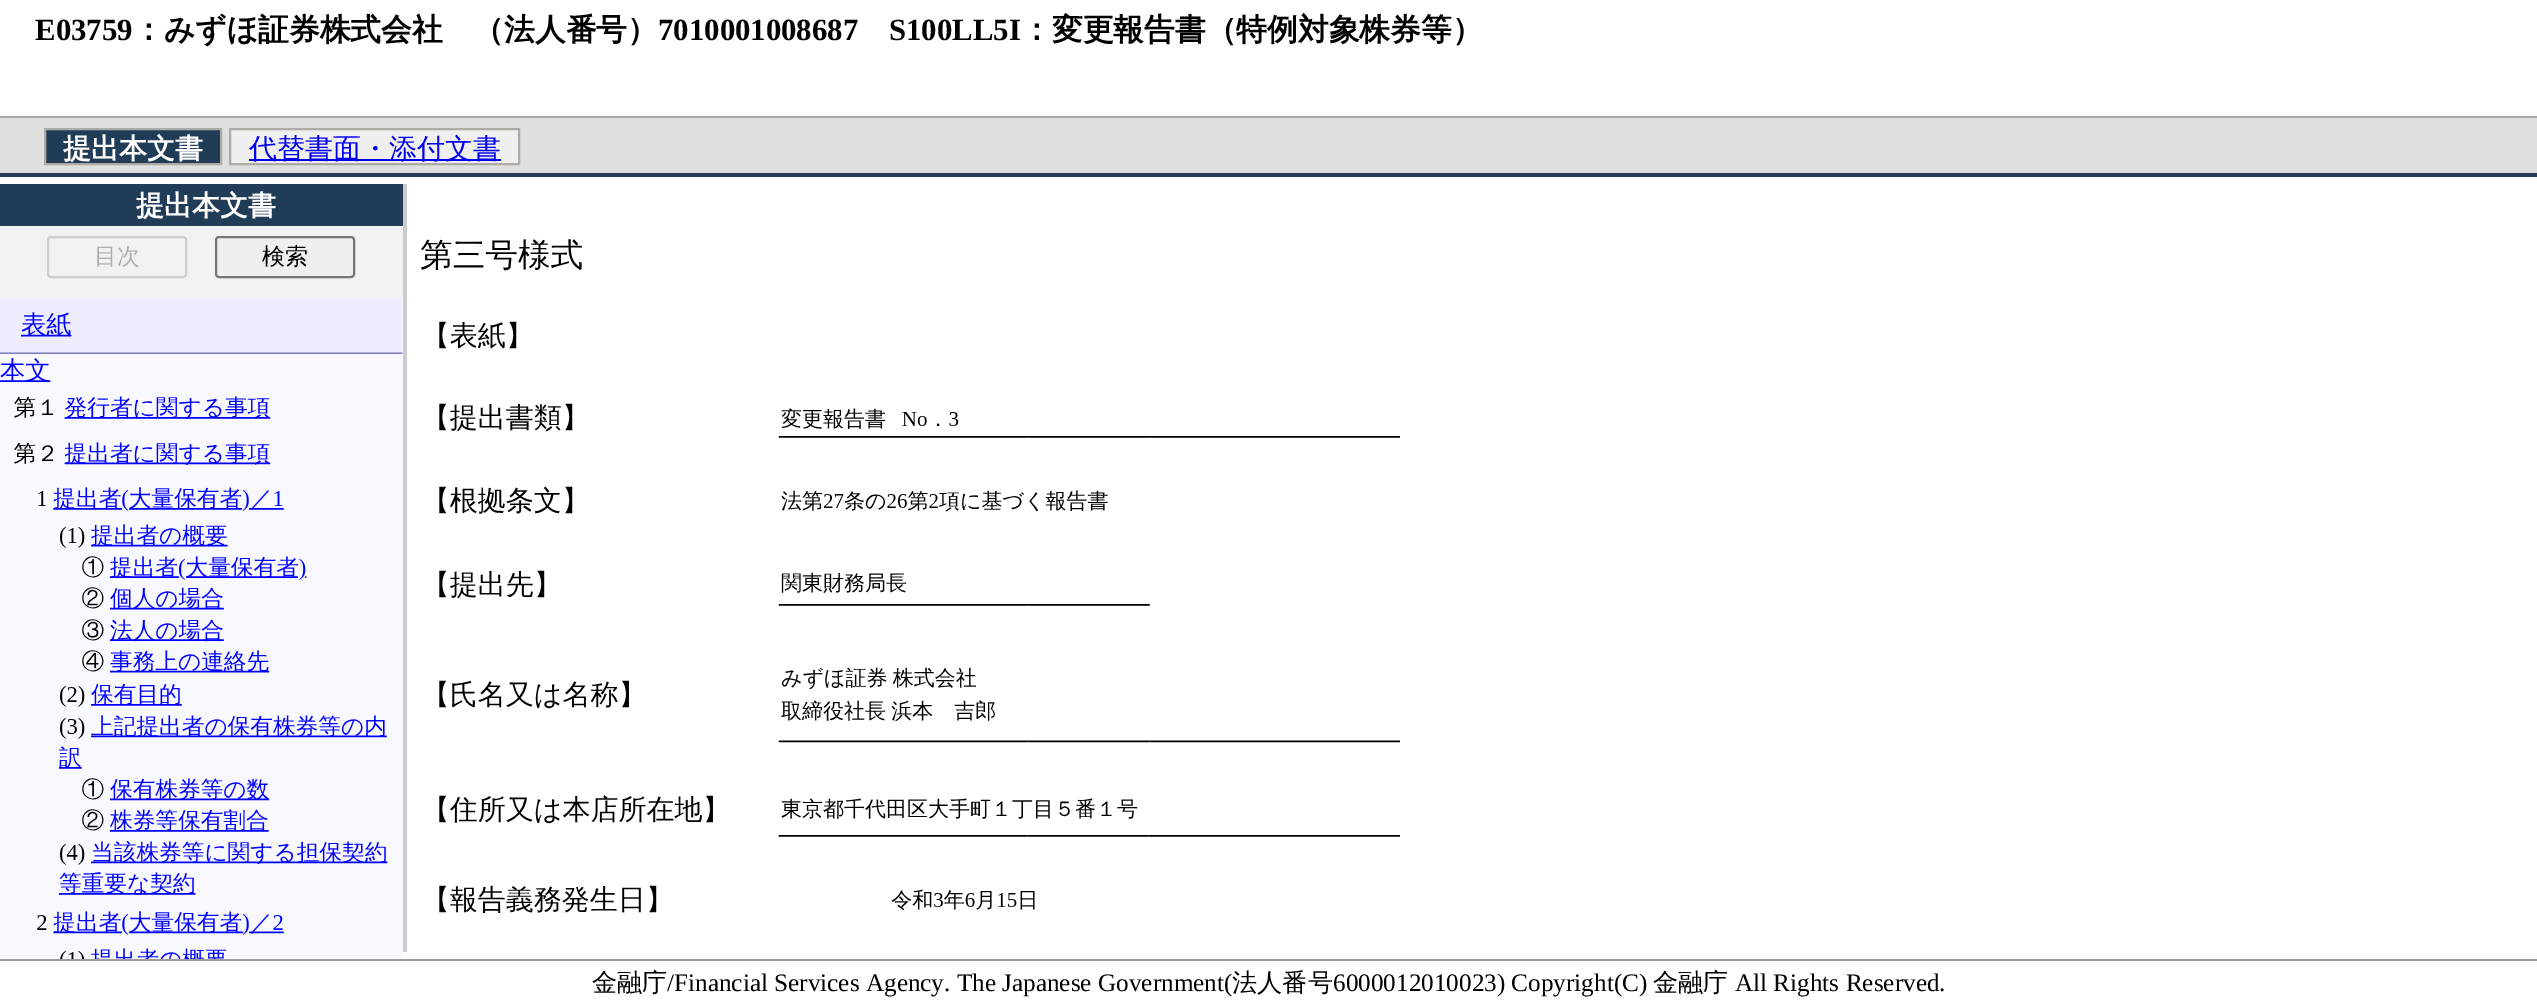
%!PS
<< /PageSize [2537 1004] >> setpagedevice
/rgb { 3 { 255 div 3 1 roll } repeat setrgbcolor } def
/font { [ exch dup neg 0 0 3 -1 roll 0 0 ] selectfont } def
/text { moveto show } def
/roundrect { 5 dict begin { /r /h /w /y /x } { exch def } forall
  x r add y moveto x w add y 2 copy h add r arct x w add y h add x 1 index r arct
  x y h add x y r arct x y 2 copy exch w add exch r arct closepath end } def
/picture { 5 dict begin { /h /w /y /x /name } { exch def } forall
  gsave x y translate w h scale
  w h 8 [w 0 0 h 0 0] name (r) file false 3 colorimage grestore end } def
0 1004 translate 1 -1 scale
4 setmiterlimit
255 255 255 rgb
0 0 2537 1004 rectfill
223 223 223 rgb
0 118 2537 55 rectfill
171 171 171 rgb
0 116 2537 2 rectfill
33 60 87 rgb
0 173 2537 4 rectfill
45 129 moveto 176 0 rlineto 0 35 rlineto -176 0 rlineto closepath gsave fill grestore
172 171 166 rgb
2 setlinewidth
stroke
239 239 239 rgb
230 129 moveto 289 0 rlineto 0 35 rlineto -289 0 rlineto closepath gsave fill grestore
172 171 166 rgb
stroke
0 0 238 rgb
249 159 252 2 rectfill
242 242 242 rgb
0 226 403 72 rectfill
33 60 87 rgb
0 184 403 42 rectfill
204 204 204 rgb
403 184 4 768 rectfill
(img_01.rgb) 421 239 979 674 picture
205 205 205 rgb
48 237 138 40 3 roundrect stroke
239 239 239 rgb
216 237 138 40 3 roundrect gsave fill grestore
118 118 118 rgb
stroke
(img_02.rgb) 0 298 403 661 picture
158 158 158 rgb
0 959 2537 2 rectfill
/LiberationSerif-Bold 30.75 font
0 0 0 rgb
(E03759) 35 40 text
/WenQuanYiZenHei-Bold 30.75 font
(：みずほ証券株式会社　（法人番号）) 133 40 text
/LiberationSerif-Bold 30.75 font
(7010001008687) 658 40 text
(S100LL5I) 889 40 text
/WenQuanYiZenHei-Bold 30.75 font
(：変更報告書（特例対象株券等）) 1021 40 text
/WenQuanYiZenHei-Bold 28 font
255 255 255 rgb
(提出本文書) 63 158 text
/WenQuanYiZenHei-Medium 28 font
0 0 238 rgb
(代替書面・添付文書) 249 158 text
/WenQuanYiZenHei-Bold 28 font
255 255 255 rgb
(提出本文書) 136 215 text
/WenQuanYiZenHei-Medium 23 font
174 174 174 rgb
(目次) 94 264 text
0 0 0 rgb
(検索) 262 264 text
/WenQuanYiZenHei-Medium 25.2 font
(金融庁) 592 991 text
/LiberationSerif-Regular 25.2 font
(/Financial Services Agency. The Japanese Government\() 667 991 text
/WenQuanYiZenHei-Medium 25.2 font
(法人番号) 1232 991 text
/LiberationSerif-Regular 25.2 font
(6000012010023\) Copyright\(C\)) 1333 991 text
/WenQuanYiZenHei-Medium 25.2 font
(金融庁) 1653 991 text
/LiberationSerif-Regular 25.2 font
(All Rights Reserved.) 1735 991 text
showpage
